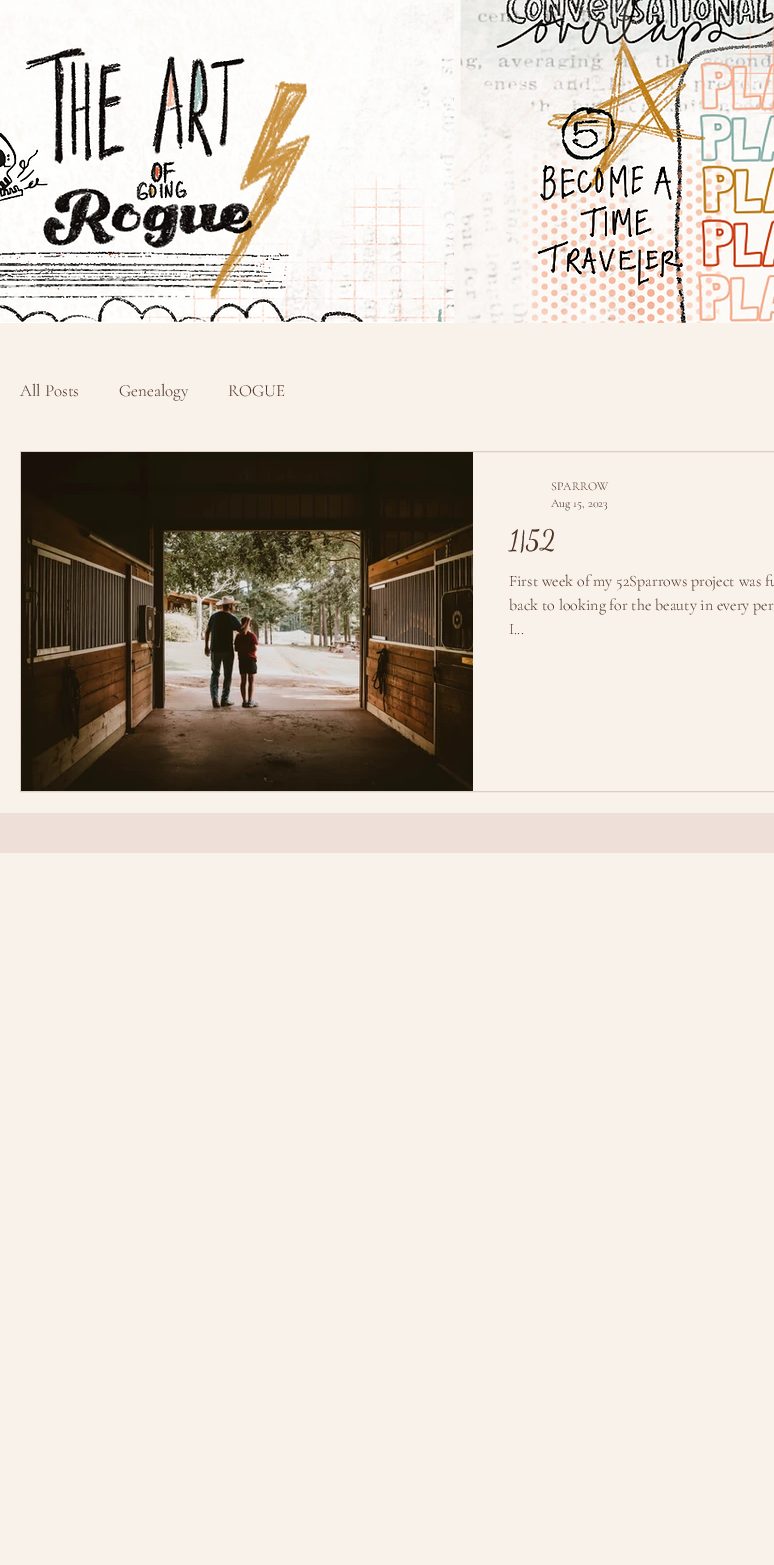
%!PS
<< /PageSize [774 1565] >> setpagedevice
/rgb { 3 { 255 div 3 1 roll } repeat setrgbcolor } def
/font { [ exch dup neg 0 0 3 -1 roll 0 0 ] selectfont } def
/text { moveto show } def
/picture { 5 dict begin { /h /w /y /x /name } { exch def } forall
  gsave x y translate w h scale
  w h 8 [w 0 0 h 0 0] name (r) file false 3 colorimage grestore end } def
0 1565 translate 1 -1 scale
4 setmiterlimit
248 242 234 rgb
0 0 774 1565 rectfill
(img_01.rgb) 0 0 454 323 picture
(img_02.rgb) 454 0 320 323 picture
217 207 197 rgb
20.5 451.5 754 340 rectstroke
(img_03.rgb) 21 452 452 339 picture
239 223 217 rgb
0 813 774 40 rectfill
/CormorantGaramond-Light 17 font
79 52 38 rgb
(All Posts) 20 396 text
(Genealogy) 119 396 text
(ROGUE) 228 396 text
/CormorantGaramond-Light 12 font
(SPARROW) 551 490 text
(Aug 15, 2023) 551 507 text
/DancingScript-Regular 28 font
(1|52) 509 549 text
/CormorantGaramond-Light 16 font
(First week of my 52Sparrows project was fu) 509 586 text
(back to looking for the beauty in every per) 509 610 text
(I...) 509 634 text
showpage
